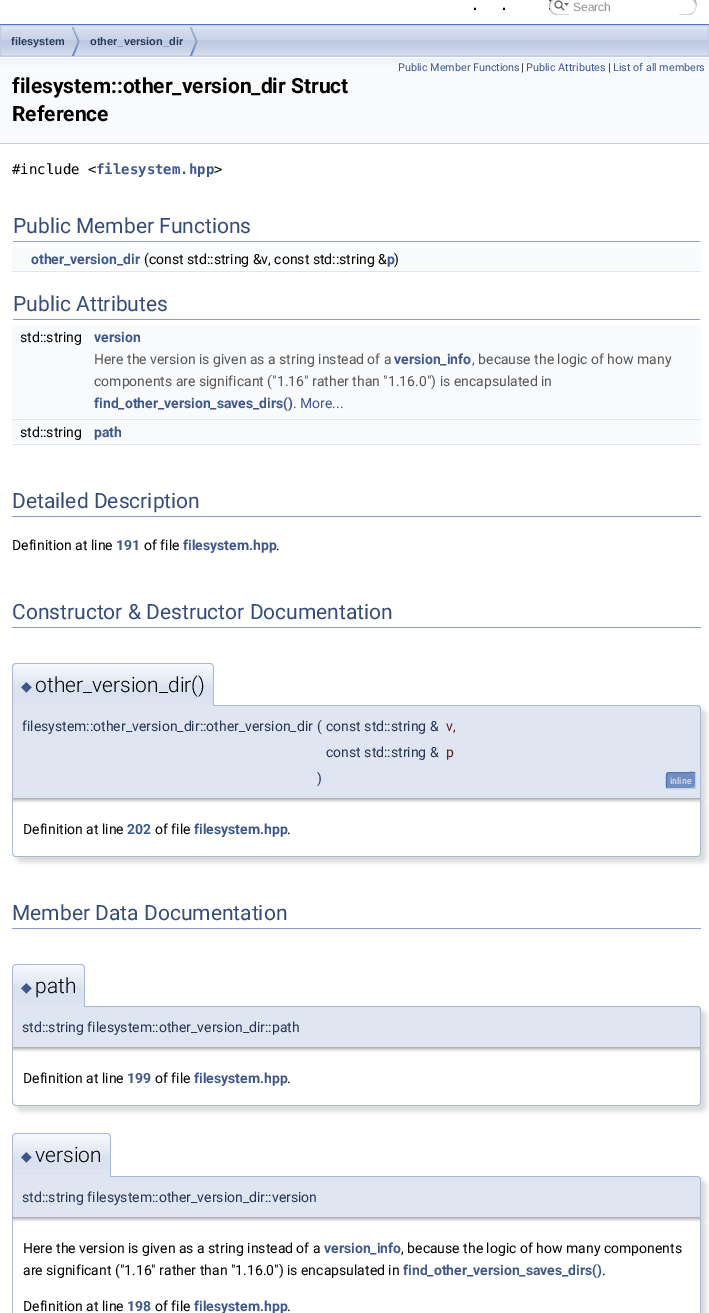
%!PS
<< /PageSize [709 1313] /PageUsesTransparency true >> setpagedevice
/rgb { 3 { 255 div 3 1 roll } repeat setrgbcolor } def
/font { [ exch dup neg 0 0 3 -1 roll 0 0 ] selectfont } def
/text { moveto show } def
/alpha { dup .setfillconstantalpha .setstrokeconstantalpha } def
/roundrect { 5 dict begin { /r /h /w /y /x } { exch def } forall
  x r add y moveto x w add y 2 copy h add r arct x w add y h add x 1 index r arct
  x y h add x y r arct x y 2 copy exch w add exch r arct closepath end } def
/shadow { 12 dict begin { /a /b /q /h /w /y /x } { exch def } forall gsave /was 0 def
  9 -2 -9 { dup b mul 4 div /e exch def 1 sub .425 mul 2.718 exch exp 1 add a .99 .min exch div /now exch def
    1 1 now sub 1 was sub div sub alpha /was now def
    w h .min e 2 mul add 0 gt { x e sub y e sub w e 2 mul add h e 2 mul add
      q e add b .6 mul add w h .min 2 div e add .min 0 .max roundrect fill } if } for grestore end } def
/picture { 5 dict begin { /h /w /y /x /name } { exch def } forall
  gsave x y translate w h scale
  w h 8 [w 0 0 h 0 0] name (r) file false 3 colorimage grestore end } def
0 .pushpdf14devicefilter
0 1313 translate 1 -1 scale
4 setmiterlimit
255 255 255 rgb
0 0 709 1313 rectfill
83 115 180 rgb
0 24 709 1 rectfill
(img_01.rgb) 549 0 20 15 picture
(img_02.rgb) 554 0 15 11 picture
(img_03.rgb) 679 0 18 15 picture
(img_04.rgb) 1 26 707 30 picture
194 205 228 rgb
0.5 25.5 708 31 rectstroke
(img_05.rgb) 72 27 8 29 picture
(img_05.rgb) 190 27 8 29 picture
249 250 252 rgb
0 65 709 78 rectfill
(img_06.rgb) 0 57 709 8 picture
196 207 229 rgb
0 143 709 1 rectfill
135 158 203 rgb
13 241 687 1 rectfill
249 250 252 rgb
12 247 689 23 rectfill
222 228 240 rgb
12 271 689 1 rectfill
135 158 203 rgb
13 319 687 1 rectfill
249 250 252 rgb
12 325 689 23 rectfill
12 348 689 70 rectfill
222 228 240 rgb
12 419 689 1 rectfill
249 250 252 rgb
12 420 689 23 rectfill
222 228 240 rgb
12 444 689 1 rectfill
135 158 203 rgb
12 516 689 1 rectfill
12 627 689 1 rectfill
0 0 0 rgb
17 710 689 93 4 2.5 0.15 shadow
223 229 241 rgb
12 705 moveto 685 0 rlineto 2 0 4 2 4 4 rcurveto 0 89 rlineto -689 0 rlineto closepath fill
168 184 217 rgb
12 705 moveto 685 0 rlineto 2 0 4 2 4 4 rcurveto 0 89 rlineto -689 0 rlineto closepath 13 706 moveto 684 0 rlineto 2 0 3 1 3 3 rcurveto 0 89 rlineto -687 0 rlineto closepath eofill
226 232 242 rgb
16 663 moveto 194 0 rlineto 2 0 4 2 4 4 rcurveto 0 39 rlineto -202 0 rlineto 0 -39 rlineto 0 -2 2 -4 4 -4 rcurveto closepath fill
(img_07.rgb) 12 664 202 41 picture
168 184 217 rgb
16 663 moveto 194 0 rlineto 2 0 4 2 4 4 rcurveto 0 39 rlineto -202 0 rlineto 0 -39 rlineto 0 -2 2 -4 4 -4 rcurveto closepath 16 664 moveto 194 0 rlineto 2 0 3 1 3 3 rcurveto 0 39 rlineto -200 0 rlineto 0 -39 rlineto 0 -2 1 -3 3 -3 rcurveto closepath eofill
114 141 193 rgb
666 772 30 17 3 roundrect fill
196 207 229 rgb
695 773 moveto 1 1.5 0.5 6 0.5 7.5 rcurveto 0 7.5 1 8 -6.5 8 rcurveto -16 0 rlineto -1.5 0 -4.5 0.5 -6 -0.5 rcurveto stroke
83 115 180 rgb
667 788 moveto -1 -1.5 -0.5 -6 -0.5 -7.5 rcurveto 0 -7.5 -1 -8 6.5 -8 rcurveto 16 0 rlineto 1.5 0 4.5 -0.5 6 0.5 rcurveto stroke
0 0 0 rgb
17 803 689 59 4 2.5 0.15 shadow
255 255 255 rgb
12 798 moveto 689 0 rlineto 0 55 rlineto 0 2 -2 4 -4 4 rcurveto -681 0 rlineto -2 0 -4 -2 -4 -4 rcurveto closepath fill
(img_08.rgb) 13 798 687 5 picture
168 184 217 rgb
12 798 moveto 689 0 rlineto 0 55 rlineto 0 2 -2 4 -4 4 rcurveto -681 0 rlineto -2 0 -4 -2 -4 -4 rcurveto closepath 13 798 moveto 687 0 rlineto 0 55 rlineto 0 2 -1 3 -3 3 rcurveto -681 0 rlineto -2 0 -3 -1 -3 -3 rcurveto closepath eofill
135 158 203 rgb
12 928 689 1 rectfill
0 0 0 rgb
17 1011 689 41 4 2.5 0.15 shadow
223 229 241 rgb
12 1006 moveto 685 0 rlineto 2 0 4 2 4 4 rcurveto 0 37 rlineto -689 0 rlineto closepath fill
168 184 217 rgb
12 1006 moveto 685 0 rlineto 2 0 4 2 4 4 rcurveto 0 37 rlineto -689 0 rlineto closepath 13 1007 moveto 684 0 rlineto 2 0 3 1 3 3 rcurveto 0 37 rlineto -687 0 rlineto closepath eofill
226 232 242 rgb
16 964 moveto 65 0 rlineto 2 0 4 2 4 4 rcurveto 0 39 rlineto -73 0 rlineto 0 -39 rlineto 0 -2 2 -4 4 -4 rcurveto closepath fill
(img_09.rgb) 12 965 73 41 picture
168 184 217 rgb
16 964 moveto 65 0 rlineto 2 0 4 2 4 4 rcurveto 0 39 rlineto -73 0 rlineto 0 -39 rlineto 0 -2 2 -4 4 -4 rcurveto closepath 16 965 moveto 65 0 rlineto 2 0 3 1 3 3 rcurveto 0 39 rlineto -71 0 rlineto 0 -39 rlineto 0 -2 1 -3 3 -3 rcurveto closepath eofill
0 0 0 rgb
17 1052 689 59 4 2.5 0.15 shadow
255 255 255 rgb
12 1047 moveto 689 0 rlineto 0 55 rlineto 0 2 -2 4 -4 4 rcurveto -681 0 rlineto -2 0 -4 -2 -4 -4 rcurveto closepath fill
(img_08.rgb) 13 1047 687 5 picture
168 184 217 rgb
12 1047 moveto 689 0 rlineto 0 55 rlineto 0 2 -2 4 -4 4 rcurveto -681 0 rlineto -2 0 -4 -2 -4 -4 rcurveto closepath 13 1047 moveto 687 0 rlineto 0 55 rlineto 0 2 -1 3 -3 3 rcurveto -681 0 rlineto -2 0 -3 -1 -3 -3 rcurveto closepath eofill
0 0 0 rgb
17 1181 689 41 4 2.5 0.15 shadow
223 229 241 rgb
12 1176 moveto 685 0 rlineto 2 0 4 2 4 4 rcurveto 0 37 rlineto -689 0 rlineto closepath fill
168 184 217 rgb
12 1176 moveto 685 0 rlineto 2 0 4 2 4 4 rcurveto 0 37 rlineto -689 0 rlineto closepath 13 1177 moveto 684 0 rlineto 2 0 3 1 3 3 rcurveto 0 37 rlineto -687 0 rlineto closepath eofill
226 232 242 rgb
16 1133 moveto 91 0 rlineto 2 0 4 2 4 4 rcurveto 0 40 rlineto -99 0 rlineto 0 -40 rlineto 0 -2 2 -4 4 -4 rcurveto closepath fill
(img_10.rgb) 12 1134 99 41 picture
168 184 217 rgb
16 1133 moveto 91 0 rlineto 2 0 4 2 4 4 rcurveto 0 40 rlineto -99 0 rlineto 0 -40 rlineto 0 -2 2 -4 4 -4 rcurveto closepath 16 1134 moveto 91 0 rlineto 2 0 3 1 3 3 rcurveto 0 40 rlineto -97 0 rlineto 0 -40 rlineto 0 -2 1 -3 3 -3 rcurveto closepath eofill
0 0 0 rgb
17 1222 689 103 4 2.5 0.15 shadow
255 255 255 rgb
13 1217 687 96 rectfill
(img_08.rgb) 13 1217 687 5 picture
168 184 217 rgb
12 1217 moveto 689 0 rlineto 0 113 rlineto 0 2 -2 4 -4 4 rcurveto -681 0 rlineto -2 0 -4 -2 -4 -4 rcurveto closepath 13 1217 moveto 687 0 rlineto 0 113 rlineto 0 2 -1 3 -3 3 rcurveto -681 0 rlineto -2 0 -3 -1 -3 -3 rcurveto closepath eofill
/LiberationSans-Regular 21 font
0 0 0 rgb
(.) 472 10 text
(.) 501 10 text
/LiberationSans-Regular 12 font
144 144 144 rgb
(Search) 573 11 text
/LiberationSans-Bold 11 font
40 58 93 rgb
(filesystem) 11 45 text
(other_version_dir) 90 45 text
/Roboto-Regular 10.75 font
61 87 140 rgb
(Public Member Functions) 398 71 text
0 0 0 rgb
(|) 521 71 text
61 87 140 rgb
(Public Attributes) 526 71 text
0 0 0 rgb
(|) 608 71 text
61 87 140 rgb
(List of all members) 613 71 text
/Roboto-Bold 21 font
0 0 0 rgb
(filesystem::other_version_dir Struct) 12 93 text
(Reference) 12 121 text
/DejaVuSansMono-Regular 14 font
(#include <) 12 174 text
/DejaVuSansMono-Bold 14 font
61 87 140 rgb
(filesystem.hpp) 96 174 text
/DejaVuSansMono-Regular 14 font
0 0 0 rgb
(>) 214 174 text
/Roboto-Regular 21 font
53 76 123 rgb
(Public Member Functions) 13 233 text
/Roboto-Bold 14 font
61 87 140 rgb
(other_version_dir) 31 264 text
/Roboto-Regular 14 font
0 0 0 rgb
(\(const std::string &v, const std::string &) 144 264 text
/Roboto-Bold 14 font
61 87 140 rgb
(p) 387 264 text
/Roboto-Regular 14 font
0 0 0 rgb
(\)) 394 264 text
/Roboto-Regular 21 font
53 76 123 rgb
(Public Attributes) 13 311 text
/Roboto-Regular 14 font
0 0 0 rgb
(std::string) 20 342 text
/Roboto-Bold 14 font
61 87 140 rgb
(version) 94 342 text
/Roboto-Regular 14 font
85 85 85 rgb
(Here the version is given as a string instead of a) 94 364 text
/Roboto-Bold 14 font
61 87 140 rgb
(version_info) 394 364 text
/Roboto-Regular 14 font
85 85 85 rgb
(, because the logic of how many) 472 364 text
(components are significant \("1.16" rather than "1.16.0"\) is encapsulated in) 94 386 text
/Roboto-Bold 14 font
61 87 140 rgb
(find_other_version_saves_dirs\(\)) 94 408 text
/Roboto-Regular 14 font
85 85 85 rgb
(.) 293 408 text
61 87 140 rgb
(More...) 300 408 text
0 0 0 rgb
(std::string) 20 437 text
/Roboto-Bold 14 font
61 87 140 rgb
(path) 94 437 text
/Roboto-Regular 21 font
53 76 123 rgb
(Detailed Description) 12 508 text
/Roboto-Regular 14 font
0 0 0 rgb
(Definition at line) 12 550 text
/Roboto-Bold 14 font
61 87 140 rgb
(191) 116 550 text
/Roboto-Regular 14 font
0 0 0 rgb
(of file) 144 550 text
/Roboto-Bold 14 font
61 87 140 rgb
(filesystem.hpp) 183 550 text
/Roboto-Regular 14 font
0 0 0 rgb
(.) 276 550 text
/Roboto-Regular 21 font
53 76 123 rgb
(Constructor & Destructor Documentation) 12 619 text
/DejaVuSans-Regular 14 font
61 87 140 rgb
(◆) 21 691 text
/Roboto-Light 21 font
0 0 0 rgb
(other_version_dir\(\)) 35 692 text
/Roboto-Regular 14 font
37 53 85 rgb
(filesystem::other_version_dir::other_version_dir) 22 731 text
(\() 317 731 text
(const std::string &) 326 731 text
96 32 32 rgb
(v,) 446 731 text
37 53 85 rgb
(const std::string &) 326 757 text
96 32 32 rgb
(p) 446 757 text
37 53 85 rgb
(\)) 317 783 text
/Roboto-Regular 9 font
255 255 255 rgb
(inline) 670 784 text
/Roboto-Regular 14 font
0 0 0 rgb
(Definition at line) 23 834 text
/Roboto-Bold 14 font
61 87 140 rgb
(202) 127 834 text
/Roboto-Regular 14 font
0 0 0 rgb
(of file) 155 834 text
/Roboto-Bold 14 font
61 87 140 rgb
(filesystem.hpp) 194 834 text
/Roboto-Regular 14 font
0 0 0 rgb
(.) 287 834 text
/Roboto-Regular 21 font
53 76 123 rgb
(Member Data Documentation) 12 920 text
/DejaVuSans-Regular 14 font
61 87 140 rgb
(◆) 21 992 text
/Roboto-Light 21 font
0 0 0 rgb
(path) 35 993 text
/Roboto-Regular 14 font
37 53 85 rgb
(std::string filesystem::other_version_dir::path) 22 1032 text
0 0 0 rgb
(Definition at line) 23 1083 text
/Roboto-Bold 14 font
61 87 140 rgb
(199) 127 1083 text
/Roboto-Regular 14 font
0 0 0 rgb
(of file) 155 1083 text
/Roboto-Bold 14 font
61 87 140 rgb
(filesystem.hpp) 194 1083 text
/Roboto-Regular 14 font
0 0 0 rgb
(.) 287 1083 text
/DejaVuSans-Regular 14 font
61 87 140 rgb
(◆) 21 1161 text
/Roboto-Light 21 font
0 0 0 rgb
(version) 35 1162 text
/Roboto-Regular 14 font
37 53 85 rgb
(std::string filesystem::other_version_dir::version) 22 1202 text
0 0 0 rgb
(Here the version is given as a string instead of a) 23 1253 text
/Roboto-Bold 14 font
61 87 140 rgb
(version_info) 324 1253 text
/Roboto-Regular 14 font
0 0 0 rgb
(, because the logic of how many components) 401 1253 text
(are significant \("1.16" rather than "1.16.0"\) is encapsulated in) 23 1275 text
/Roboto-Bold 14 font
61 87 140 rgb
(find_other_version_saves_dirs\(\)) 403 1275 text
/Roboto-Regular 14 font
0 0 0 rgb
(.) 602 1275 text
(Definition at line) 23 1311 text
/Roboto-Bold 14 font
61 87 140 rgb
(198) 127 1311 text
/Roboto-Regular 14 font
0 0 0 rgb
(of file) 155 1311 text
/Roboto-Bold 14 font
61 87 140 rgb
(filesystem.hpp) 194 1311 text
/Roboto-Regular 14 font
0 0 0 rgb
(.) 287 1311 text
.poppdf14devicefilter showpage
